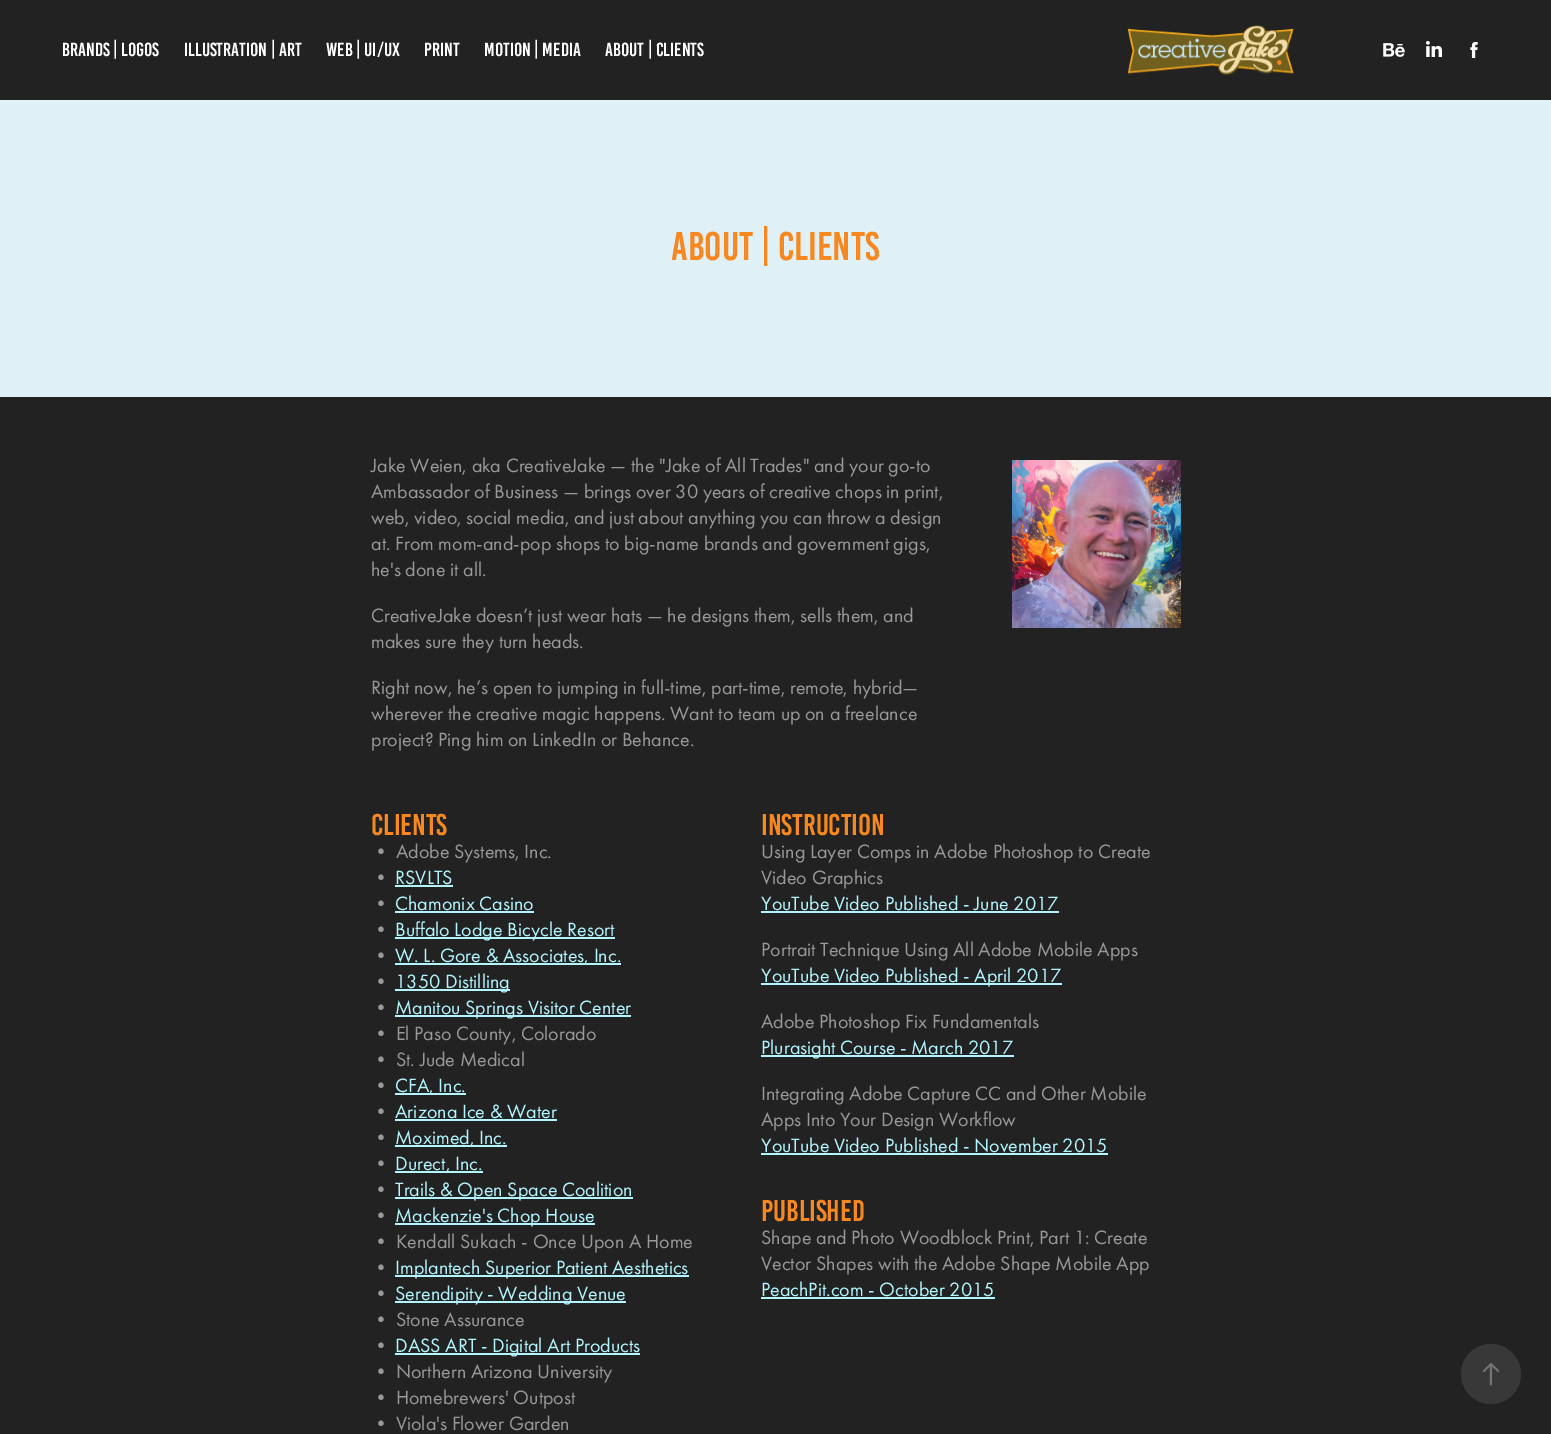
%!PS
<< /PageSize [1551 1434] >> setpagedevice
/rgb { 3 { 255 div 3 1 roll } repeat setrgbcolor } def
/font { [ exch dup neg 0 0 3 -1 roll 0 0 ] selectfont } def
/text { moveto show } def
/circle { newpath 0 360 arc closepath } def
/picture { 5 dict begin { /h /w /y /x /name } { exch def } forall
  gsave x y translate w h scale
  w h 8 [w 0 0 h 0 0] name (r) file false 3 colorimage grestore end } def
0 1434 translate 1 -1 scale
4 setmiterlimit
34 34 34 rgb
0 0 1551 1434 rectfill
(img_01.rgb) 1127 25 167 50 picture
(img_02.rgb) 1383 43 22 14 picture
(img_03.rgb) 1426 41 16 16 picture
(img_04.rgb) 1470 42 8 16 picture
223 240 247 rgb
0 100 1551 297 rectfill
(img_05.rgb) 1012 460 169 168 picture
179 246 255 rgb
395 885 58 2 rectfill
395 911 139 2 rectfill
395 937 220 2 rectfill
395 963 226 2 rectfill
395 989 115 2 rectfill
395 1015 236 2 rectfill
395 1093 71 2 rectfill
395 1119 162 2 rectfill
395 1145 112 2 rectfill
395 1171 88 2 rectfill
395 1197 238 2 rectfill
395 1223 200 2 rectfill
395 1275 294 2 rectfill
395 1301 231 2 rectfill
395 1353 245 2 rectfill
761 911 298 2 rectfill
761 983 301 2 rectfill
761 1055 253 2 rectfill
761 1153 347 2 rectfill
761 1297 234 2 rectfill
56 56 56 rgb
1491 1374 30 circle fill
(img_06.rgb) 1482 1363 18 23 picture
/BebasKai-Regular 19 font
255 255 255 rgb
(BRANDS | LOGOS) 62 56 text
(ILLUSTRATION | ART) 184 56 text
(WEB | UI/UX) 326 56 text
(PRINT) 424 56 text
(MOTION | MEDIA) 484 56 text
(ABOUT | CLIENTS) 605 56 text
/BebasKai-Regular 40 font
246 136 31 rgb
(ABOUT | CLIENTS) 671 260 text
/FuturaPT-Regular 20 font
153 153 153 rgb
(Jake Weien, aka CreativeJake — the "Jake of All Trades" and your go-to) 371 472 text
(Ambassador of Business — brings over 30 years of creative chops in print,) 371 498 text
(web, video, social media, and just about anything you can throw a design) 371 524 text
(at. From mom-and-pop shops to big-name brands and government gigs,) 371 550 text
(he's done it all.) 371 576 text
(CreativeJake doesn’t just wear hats — he designs them, sells them, and) 371 622 text
(makes sure they turn heads.) 371 648 text
(Right now, he’s open to jumping in full-time, part-time, remote, hybrid—) 371 694 text
(wherever the creative magic happens. Want to team up on a freelance) 371 720 text
(project? Ping him on LinkedIn or Behance.) 371 746 text
/BebasKai-Regular 30 font
246 136 31 rgb
(Clients) 371 835 text
/FuturaPT-Regular 20 font
153 153 153 rgb
(• Adobe Systems, Inc.) 371 858 text
(•) 371 884 text
179 246 255 rgb
(RSVLTS) 395 884 text
153 153 153 rgb
(•) 371 910 text
179 246 255 rgb
(Chamonix Casino) 395 910 text
153 153 153 rgb
(•) 371 936 text
179 246 255 rgb
(Buffalo Lodge Bicycle Resort) 395 936 text
153 153 153 rgb
(•) 371 962 text
179 246 255 rgb
(W. L. Gore & Associates, Inc.) 395 962 text
153 153 153 rgb
(•) 371 988 text
179 246 255 rgb
(1350 Distilling) 395 988 text
153 153 153 rgb
(•) 371 1014 text
179 246 255 rgb
(Manitou Springs Visitor Center) 395 1014 text
153 153 153 rgb
(• El Paso County, Colorado) 371 1040 text
(• St. Jude Medical) 371 1066 text
(•) 371 1092 text
179 246 255 rgb
(CFA, Inc.) 395 1092 text
153 153 153 rgb
(•) 371 1118 text
179 246 255 rgb
(Arizona Ice & Water) 395 1118 text
153 153 153 rgb
(•) 371 1144 text
179 246 255 rgb
(Moximed, Inc.) 395 1144 text
153 153 153 rgb
(•) 371 1170 text
179 246 255 rgb
(Durect, Inc.) 395 1170 text
153 153 153 rgb
(•) 371 1196 text
179 246 255 rgb
(Trails & Open Space Coalition) 395 1196 text
153 153 153 rgb
(•) 371 1222 text
179 246 255 rgb
(Mackenzie's Chop House) 395 1222 text
153 153 153 rgb
(• Kendall Sukach - Once Upon A Home) 371 1248 text
(•) 371 1274 text
179 246 255 rgb
(Implantech Superior Patient Aesthetics) 395 1274 text
153 153 153 rgb
(•) 371 1300 text
179 246 255 rgb
(Serendipity - Wedding Venue) 395 1300 text
153 153 153 rgb
(• Stone Assurance) 371 1326 text
(•) 371 1352 text
179 246 255 rgb
(DASS ART - Digital Art Products) 395 1352 text
153 153 153 rgb
(• Northern Arizona University) 371 1378 text
(• Homebrewers' Outpost) 371 1404 text
(• Viola's Flower Garden) 371 1430 text
/BebasKai-Regular 30 font
246 136 31 rgb
(Instruction) 761 835 text
/FuturaPT-Regular 20 font
153 153 153 rgb
(Using Layer Comps in Adobe Photoshop to Create) 761 858 text
(Video Graphics) 761 884 text
179 246 255 rgb
(YouTube Video Published - June 2017) 761 910 text
153 153 153 rgb
(Portrait Technique Using All Adobe Mobile Apps) 761 956 text
179 246 255 rgb
(YouTube Video Published - April 2017) 761 982 text
153 153 153 rgb
(Adobe Photoshop Fix Fundamentals) 761 1028 text
179 246 255 rgb
(Plurasight Course - March 2017) 761 1054 text
153 153 153 rgb
(Integrating Adobe Capture CC and Other Mobile) 761 1100 text
(Apps Into Your Design Workflow) 761 1126 text
179 246 255 rgb
(YouTube Video Published - November 2015) 761 1152 text
/BebasKai-Regular 30 font
246 136 31 rgb
(Published) 761 1221 text
/FuturaPT-Regular 20 font
153 153 153 rgb
(Shape and Photo Woodblock Print, Part 1: Create) 761 1244 text
(Vector Shapes with the Adobe Shape Mobile App) 761 1270 text
179 246 255 rgb
(PeachPit.com - October 2015) 761 1296 text
showpage
